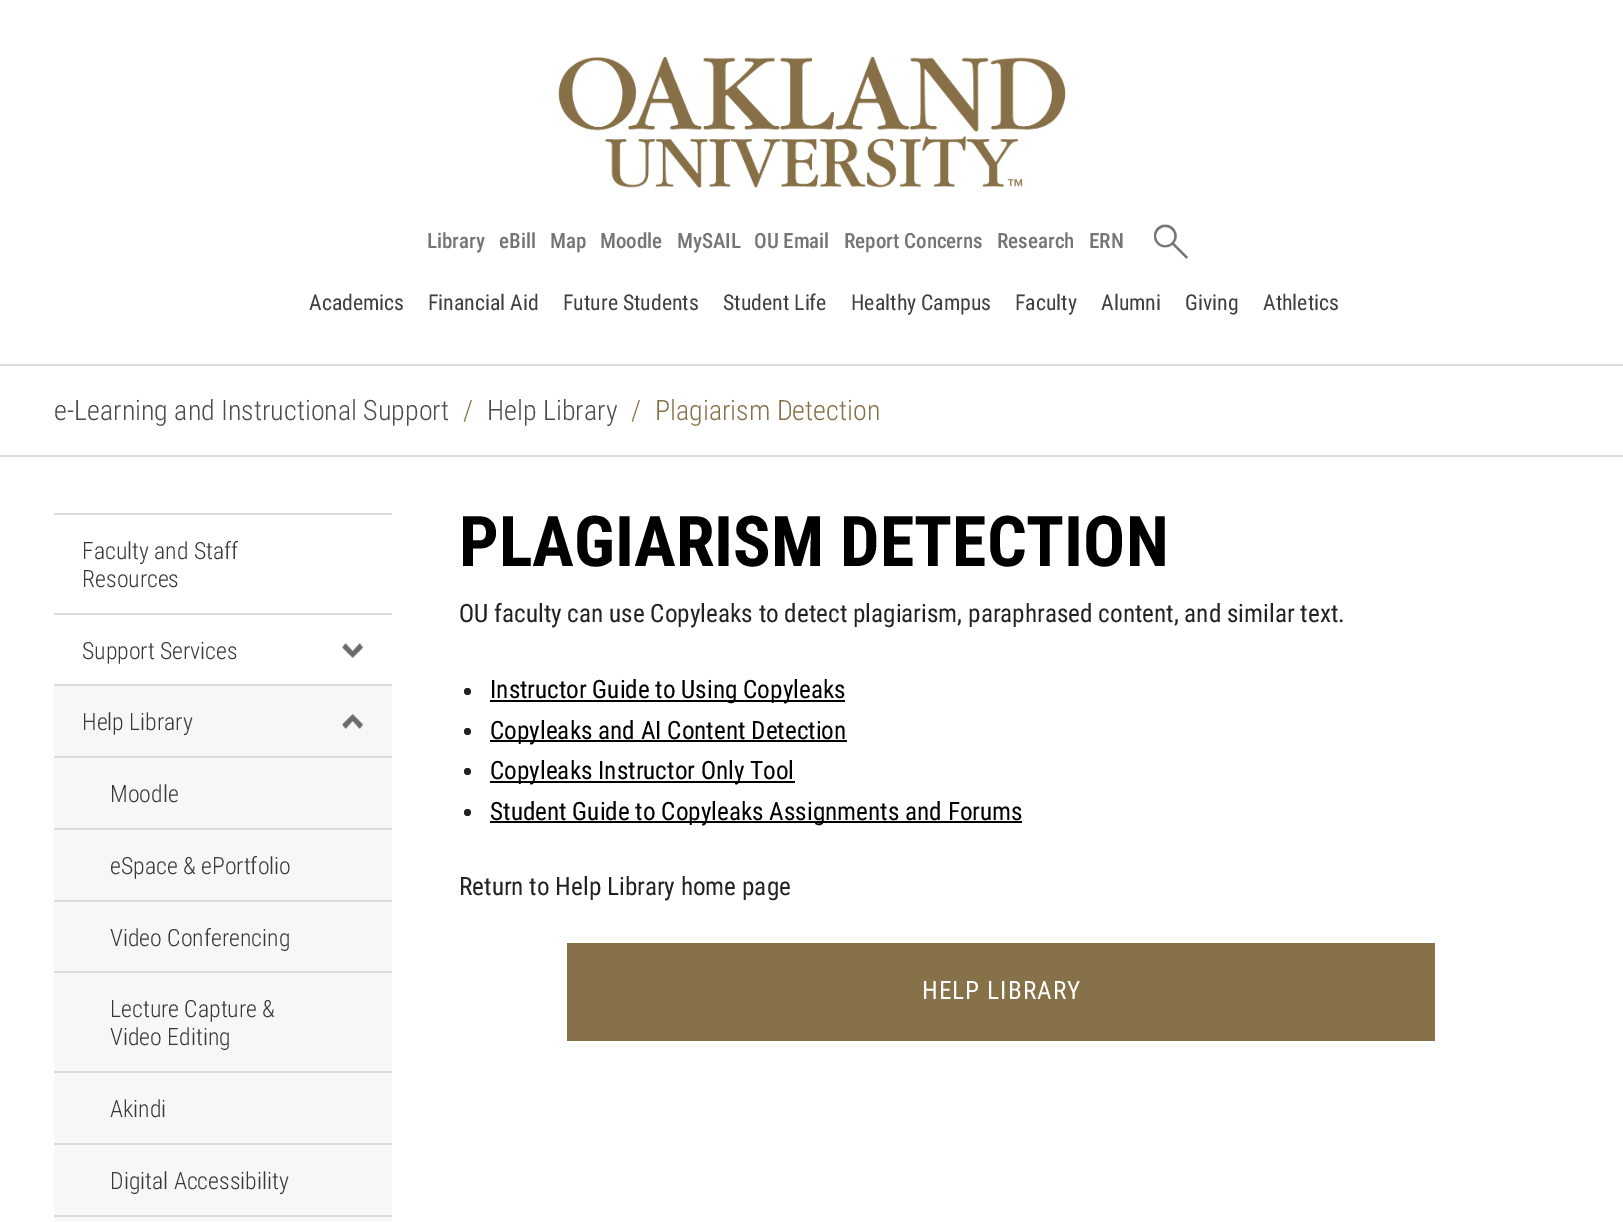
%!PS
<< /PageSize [1623 1222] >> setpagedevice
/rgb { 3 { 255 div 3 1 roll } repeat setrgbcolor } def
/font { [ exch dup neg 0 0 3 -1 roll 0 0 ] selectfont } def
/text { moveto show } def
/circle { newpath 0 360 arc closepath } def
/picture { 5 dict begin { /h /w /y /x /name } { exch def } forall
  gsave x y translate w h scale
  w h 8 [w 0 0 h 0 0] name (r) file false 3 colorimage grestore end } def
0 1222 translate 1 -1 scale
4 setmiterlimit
255 255 255 rgb
0 0 1623 1222 rectfill
(img_01.rgb) 558 56 508 132 picture
(img_02.rgb) 1154 224 35 35 picture
220 220 220 rgb
0 364 1623 2 rectfill
0 455 1623 2 rectfill
54 513 338 2 rectfill
54 613 338 2 rectfill
(img_03.rgb) 342 643 22 15 picture
247 247 247 rgb
54 686 338 536 rectfill
220 220 220 rgb
54 684 338 2 rectfill
(img_04.rgb) 342 714 22 15 picture
54 756 338 2 rectfill
54 828 338 2 rectfill
54 900 338 2 rectfill
54 971 338 2 rectfill
54 1071 338 2 rectfill
54 1143 338 2 rectfill
54 1215 338 2 rectfill
34 34 34 rgb
467.5 691.5 3.5 circle fill
0 0 0 rgb
490 700 355 2 rectfill
34 34 34 rgb
467.5 731.5 3.5 circle fill
0 0 0 rgb
490 740 357 2 rectfill
34 34 34 rgb
467.5 771.5 3.5 circle fill
0 0 0 rgb
490 781 305 2 rectfill
34 34 34 rgb
467.5 812.5 3.5 circle fill
0 0 0 rgb
490 821 532 2 rectfill
135 113 72 rgb
567 943 868 98 rectfill
/RobotoCondensed-Medium 21 font
117 117 117 rgb
(Library) 427 248 text
(eBill) 499 248 text
(Map) 550 248 text
(Moodle) 600 248 text
(MySAIL) 677 248 text
(OU Email) 754 248 text
(Report Concerns) 844 248 text
(Research) 997 248 text
(ERN) 1089 248 text
/RobotoCondensed-Regular 21.75 font
64 64 64 rgb
(Academics) 309 310 text
(Financial Aid) 428 310 text
(Future Students) 563 310 text
(Student Life) 723 310 text
(Healthy Campus) 851 310 text
(Faculty) 1015 310 text
(Alumni) 1101 310 text
(Giving) 1185 310 text
(Athletics) 1263 310 text
/RobotoCondensed-Light 28 font
76 76 76 rgb
(e-Learning and Instructional Support) 54 420 text
135 113 72 rgb
(/) 463 420 text
76 76 76 rgb
(Help Library) 487 420 text
135 113 72 rgb
(/) 631 420 text
(Plagiarism Detection) 655 420 text
/RobotoCondensed-Light 23.75 font
56 56 56 rgb
(Faculty and Staff) 82 559 text
(Resources) 82 587 text
(Support Services) 82 659 text
(Help Library) 82 730 text
(Moodle) 110 802 text
(eSpace & ePortfolio) 110 874 text
(Video Conferencing) 110 946 text
(Lecture Capture &) 110 1017 text
(Video Editing) 110 1045 text
(Akindi) 110 1117 text
(Digital Accessibility) 110 1189 text
/RobotoCondensed-Bold 70 font
0 0 0 rgb
(PLAGIARISM DETECTION) 459 566 text
/RobotoCondensed-Regular 25.2 font
34 34 34 rgb
(OU faculty can use Copyleaks to detect plagiarism, paraphrased content, and similar text.) 459 622 text
0 0 0 rgb
(Instructor Guide to Using Copyleaks) 490 698 text
(Copyleaks and AI Content Detection) 490 739 text
(Copyleaks Instructor Only Tool) 490 779 text
(Student Guide to Copyleaks Assignments and Forums) 490 820 text
34 34 34 rgb
(Return to Help Library home page) 459 895 text
255 255 255 rgb
922 999 moveto 1.1 0 (HELP LIBRARY) ashow
showpage
